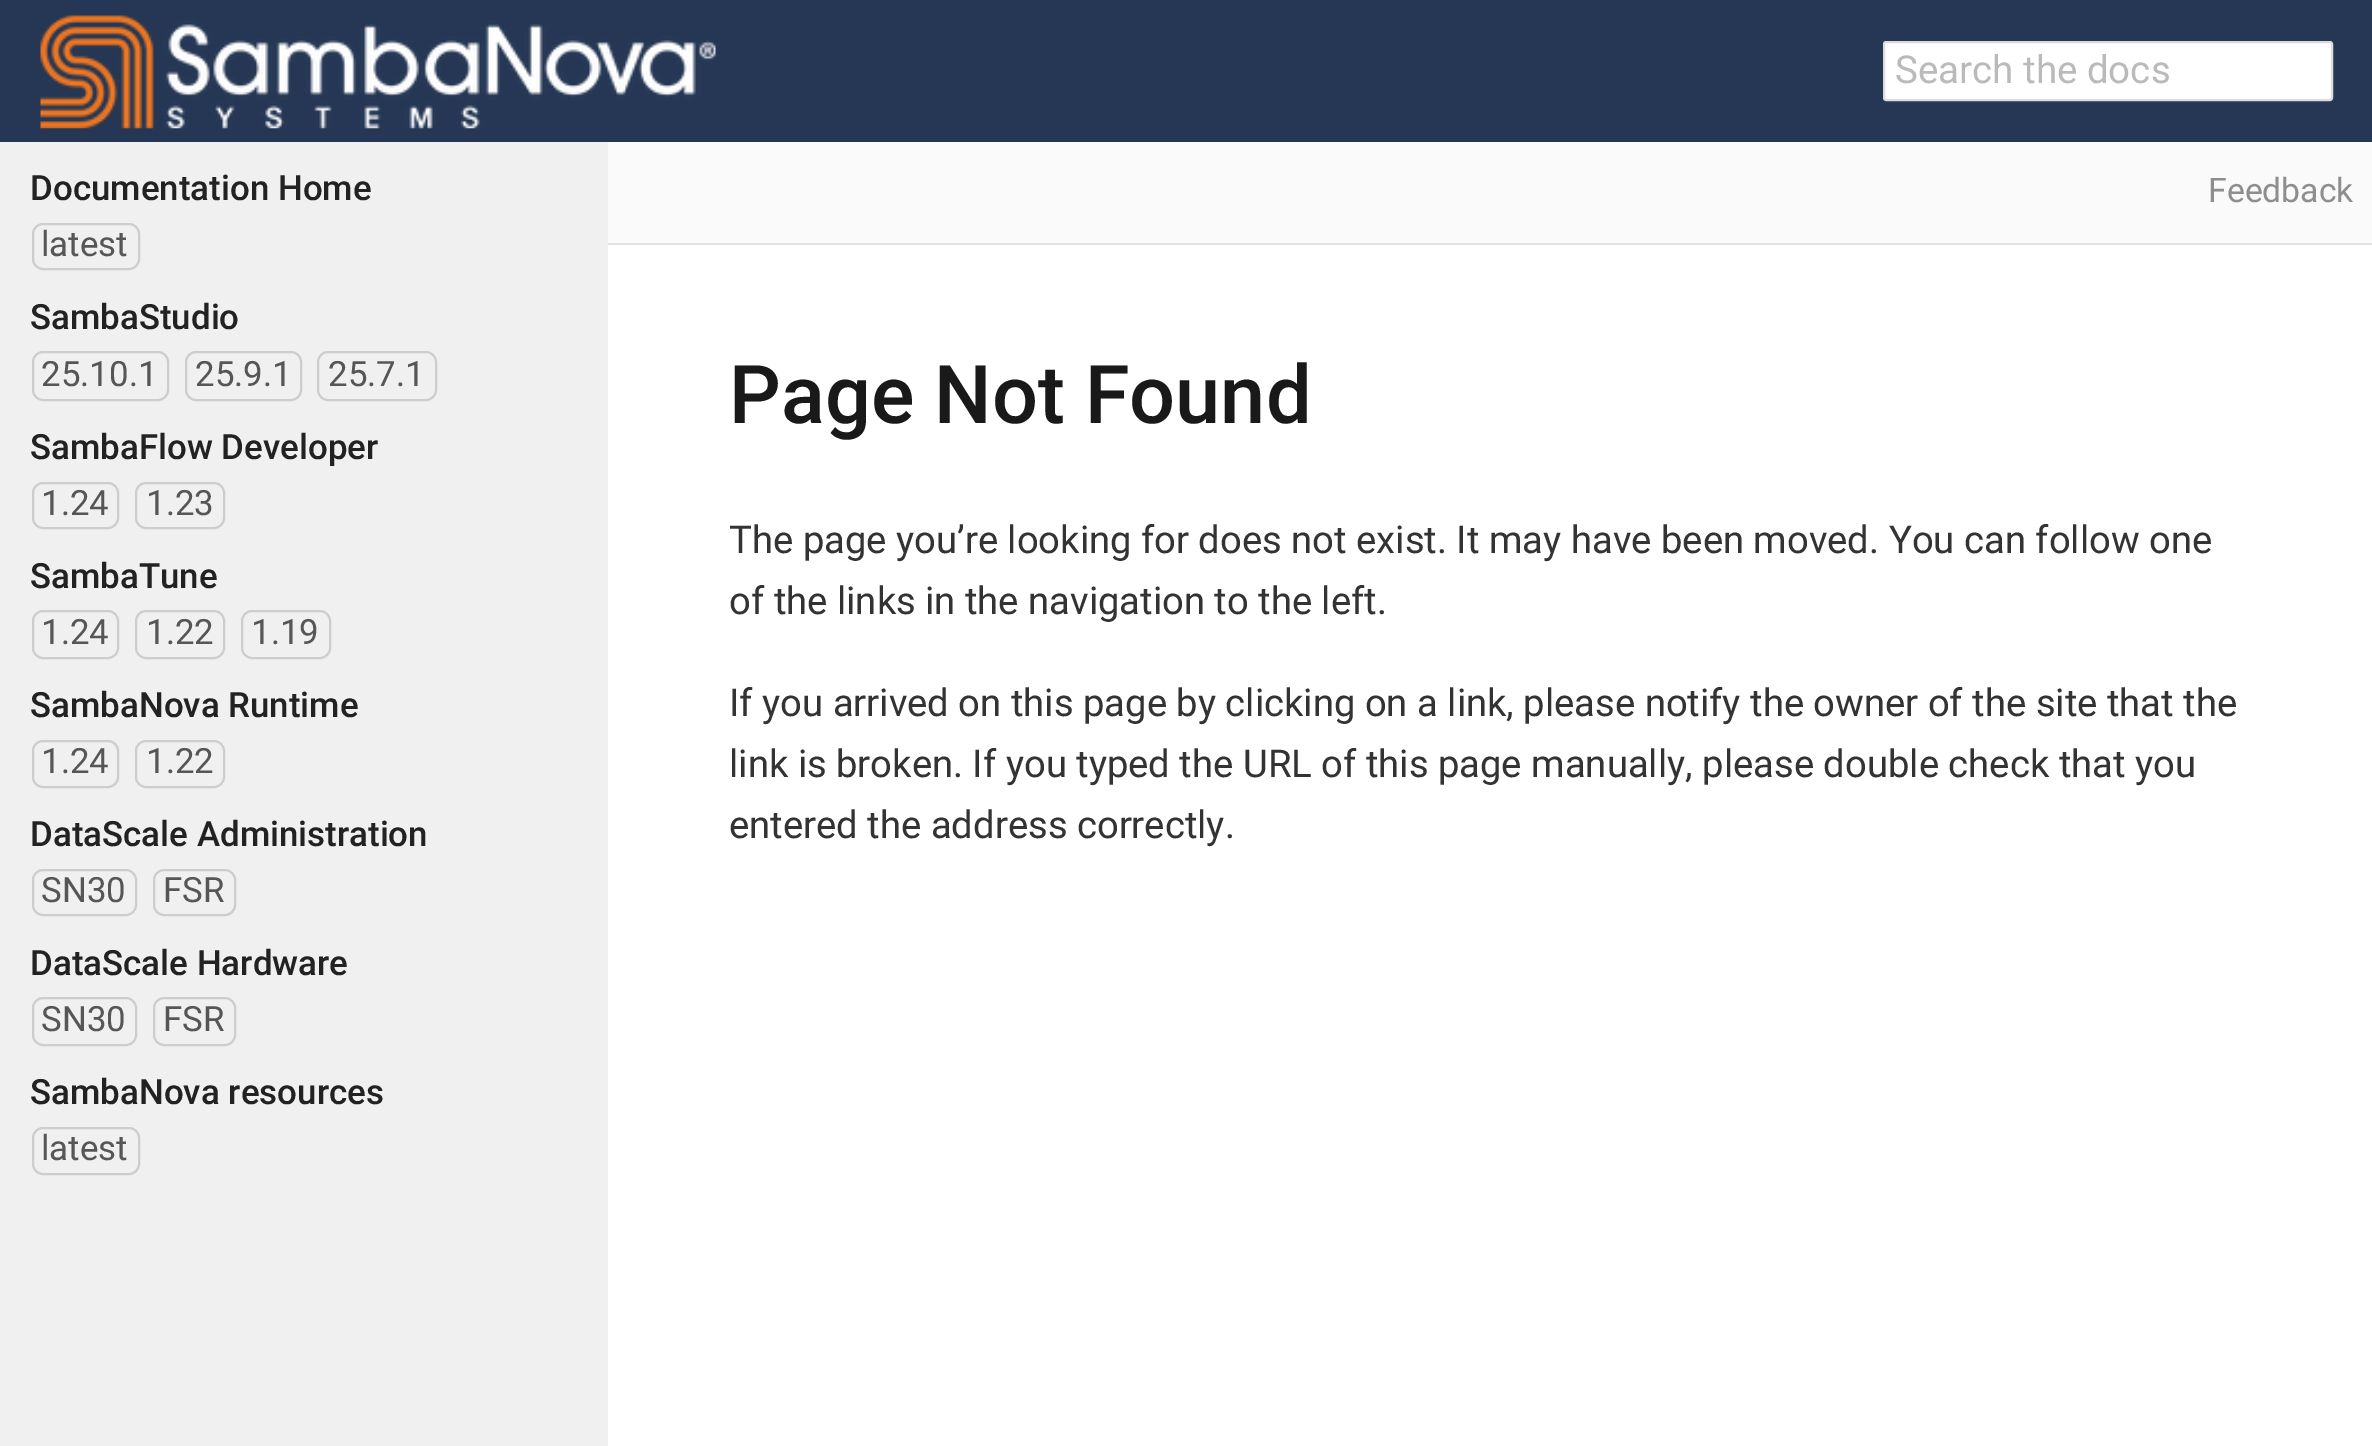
%!PS
<< /PageSize [2372 1446] >> setpagedevice
/rgb { 3 { 255 div 3 1 roll } repeat setrgbcolor } def
/font { [ exch dup neg 0 0 3 -1 roll 0 0 ] selectfont } def
/text { moveto show } def
/roundrect { 5 dict begin { /r /h /w /y /x } { exch def } forall
  x r add y moveto x w add y 2 copy h add r arct x w add y h add x 1 index r arct
  x y h add x y r arct x y 2 copy exch w add exch r arct closepath end } def
/picture { 5 dict begin { /h /w /y /x /name } { exch def } forall
  gsave x y translate w h scale
  w h 8 [w 0 0 h 0 0] name (r) file false 3 colorimage grestore end } def
0 1446 translate 1 -1 scale
4 setmiterlimit
255 255 255 rgb
0 0 2372 1446 rectfill
37 55 84 rgb
0 0 2372 142 rectfill
(img_01.rgb) 40 15 676 114 picture
255 255 255 rgb
1884 42 448 58 2 roundrect gsave fill grestore
219 219 219 rgb
2 setlinewidth
stroke
240 240 240 rgb
0 142 608 1304 rectfill
205 205 205 rgb
33 224 106 45 10 roundrect stroke
33 352 135 48 10 roundrect stroke
186 352 115 48 10 roundrect stroke
318 352 118 48 10 roundrect stroke
33 483 85 45 10 roundrect stroke
136 483 88 45 10 roundrect stroke
33 611 85 47 10 roundrect stroke
136 611 88 47 10 roundrect stroke
242 611 88 47 10 roundrect stroke
33 741 85 46 10 roundrect stroke
136 741 88 46 10 roundrect stroke
33 870 103 45 10 roundrect stroke
154 870 81 45 10 roundrect stroke
33 998 103 47 10 roundrect stroke
154 998 81 47 10 roundrect stroke
33 1128 106 46 10 roundrect stroke
225 225 225 rgb
608 243 moveto 0 2 rlineto 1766 0 rlineto 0 -101 rlineto 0 99 rlineto closepath fill
250 250 250 rgb
608 142 1764 101 rectfill
/Roboto-Regular 38.5 font
186 186 186 rgb
(Search the docs) 1895 83 text
/Roboto-Medium 34.9 font
34 34 34 rgb
(Documentation Home) 30 200 text
/Roboto-Regular 34.9 font
86 86 86 rgb
(latest) 41 256 text
/Roboto-Medium 34.9 font
34 34 34 rgb
(SambaStudio) 30 329 text
/Roboto-Regular 34.9 font
86 86 86 rgb
(25.10.1) 41 386 text
(25.9.1) 195 386 text
(25.7.1) 328 386 text
/Roboto-Medium 34.9 font
34 34 34 rgb
(SambaFlow Developer) 30 459 text
/Roboto-Regular 34.9 font
86 86 86 rgb
(1.24) 41 515 text
(1.23) 146 515 text
/Roboto-Medium 34.9 font
34 34 34 rgb
(SambaTune) 30 588 text
/Roboto-Regular 34.9 font
86 86 86 rgb
(1.24) 41 644 text
(1.22) 146 644 text
(1.19) 251 644 text
/Roboto-Medium 34.9 font
34 34 34 rgb
(SambaNova Runtime) 30 717 text
/Roboto-Regular 34.9 font
86 86 86 rgb
(1.24) 41 773 text
(1.22) 146 773 text
/Roboto-Medium 34.9 font
34 34 34 rgb
(DataScale Administration) 30 846 text
/Roboto-Regular 34.9 font
86 86 86 rgb
(SN30) 41 902 text
(FSR) 163 902 text
/Roboto-Medium 34.9 font
34 34 34 rgb
(DataScale Hardware) 30 975 text
/Roboto-Regular 34.9 font
86 86 86 rgb
(SN30) 41 1031 text
(FSR) 163 1031 text
/Roboto-Medium 34.9 font
34 34 34 rgb
(SambaNova resources) 30 1104 text
/Roboto-Regular 34.9 font
86 86 86 rgb
(latest) 41 1160 text
/Roboto-Regular 33.75 font
142 142 142 rgb
(Feedback) 2208 202 text
/Roboto-Medium 81 font
25 25 25 rgb
(Page Not Found) 729 423 text
/Roboto-Regular 38.25 font
51 51 51 rgb
(The page you’re looking for does not exist. It may have been moved. You can follow one) 729 553 text
(of the links in the navigation to the left.) 729 614 text
(If you arrived on this page by clicking on a link, please notify the owner of the site that the) 729 716 text
(link is broken. If you typed the URL of this page manually, please double check that you) 729 777 text
(entered the address correctly.) 729 838 text
showpage
